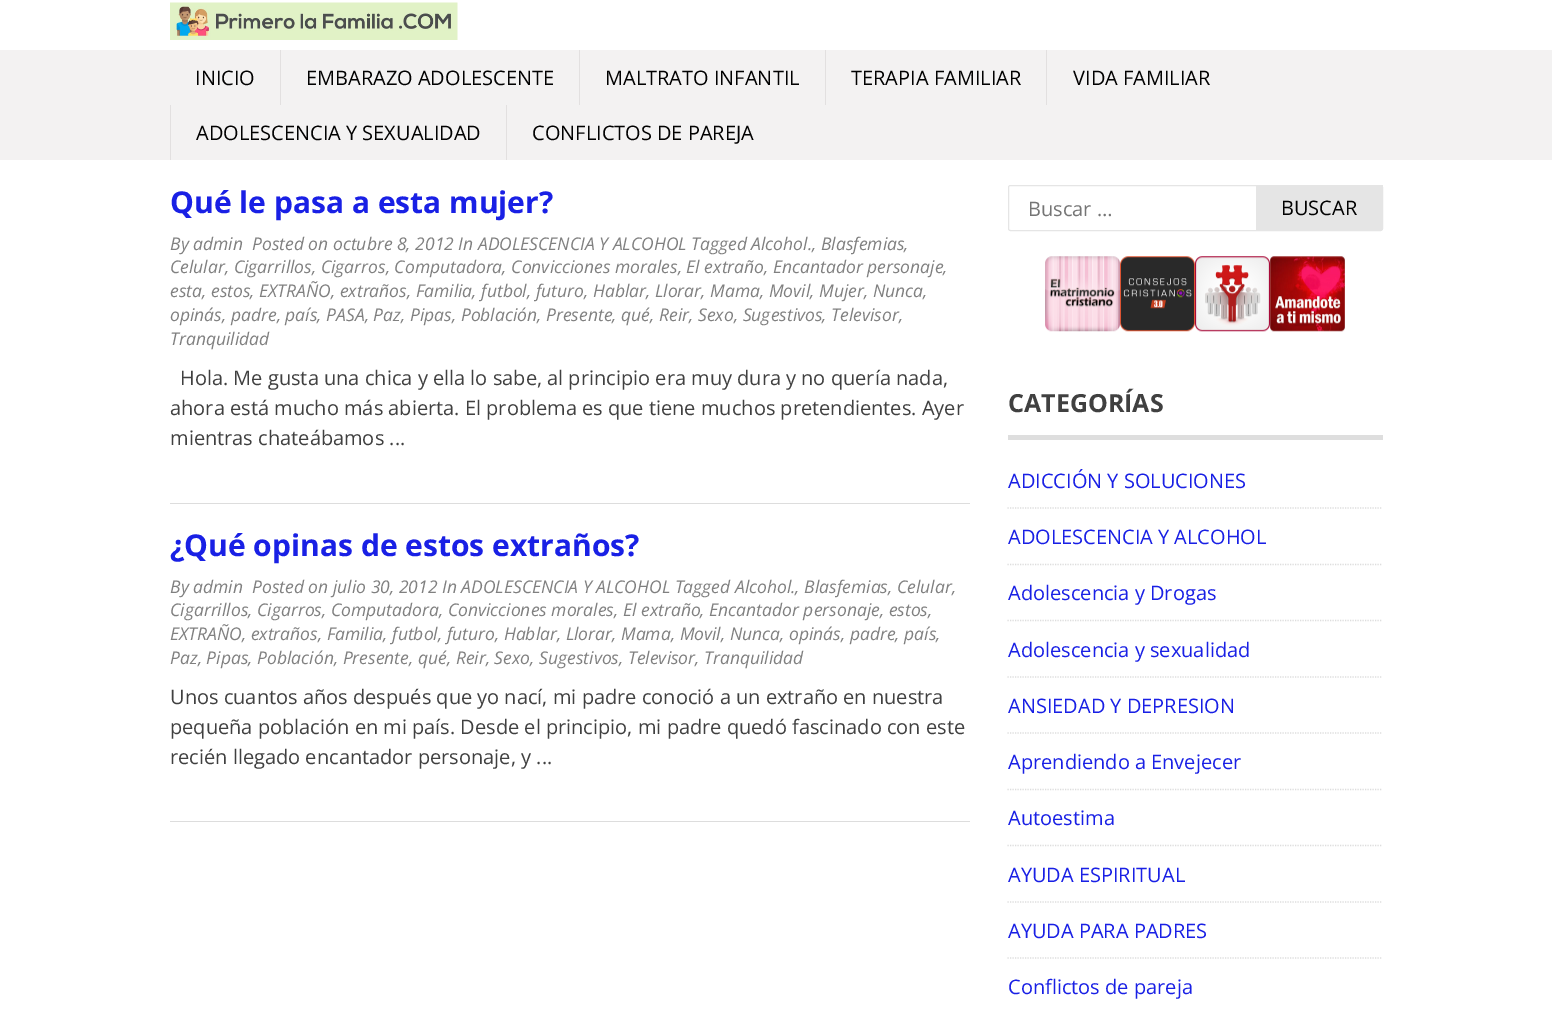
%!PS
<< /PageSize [1552 1010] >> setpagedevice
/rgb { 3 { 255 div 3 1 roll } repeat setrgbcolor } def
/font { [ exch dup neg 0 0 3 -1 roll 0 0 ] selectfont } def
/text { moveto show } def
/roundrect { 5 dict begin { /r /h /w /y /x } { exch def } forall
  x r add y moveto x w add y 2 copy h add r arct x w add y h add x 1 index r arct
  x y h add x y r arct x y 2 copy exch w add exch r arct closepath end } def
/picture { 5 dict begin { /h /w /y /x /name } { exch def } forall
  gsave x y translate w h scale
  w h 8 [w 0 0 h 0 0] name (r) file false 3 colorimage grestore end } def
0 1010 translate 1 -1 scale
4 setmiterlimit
255 255 255 rgb
0 0 1552 1010 rectfill
(img_01.rgb) 170 2 288 38 picture
243 242 242 rgb
0 50 1552 110 rectfill
226 224 224 rgb
280 50 1 55 rectfill
579 50 1 55 rectfill
825 50 1 55 rectfill
1046 50 1 55 rectfill
170 105 1 55 rectfill
506 105 1 55 rectfill
221 221 221 rgb
170 503 800 1 rectfill
170 821 800 1 rectfill
229 229 229 rgb
1008.5 185.5 374 45 2 roundrect stroke
1256 185 127 45 rectfill
(img_02.rgb) 1045 256 75 76 picture
(img_03.rgb) 1120 256 75 76 picture
(img_04.rgb) 1195 256 75 76 picture
(img_05.rgb) 1270 256 75 76 picture
222 222 222 rgb
1008 435 375 5 rectfill
221 221 221 rgb
1.2 setlinewidth
[1.25 1.25] 0 setdash
1007.5 508 moveto 375 0 rlineto stroke
1007.5 564.5 moveto 375 0 rlineto stroke
1007.5 620.5 moveto 375 0 rlineto stroke
1007.5 677 moveto 375 0 rlineto stroke
1007.5 733 moveto 375 0 rlineto stroke
1007.5 789.5 moveto 375 0 rlineto stroke
1007.5 845.5 moveto 375 0 rlineto stroke
1007.5 902 moveto 375 0 rlineto stroke
1007.5 958 moveto 375 0 rlineto stroke
/OpenSans-Regular 20 font
1 1 1 rgb
(INICIO) 195 85 text
(EMBARAZO ADOLESCENTE) 306 85 text
(MALTRATO INFANTIL) 605 85 text
(TERAPIA FAMILIAR) 851 85 text
(VIDA FAMILIAR) 1073 85 text
(ADOLESCENCIA Y SEXUALIDAD) 196 140 text
(CONFLICTOS DE PAREJA) 532 140 text
/OpenSans-Bold 30 font
25 32 229 rgb
(Qué le pasa a esta mujer?) 170 213 text
/OpenSans-Italic 17.5 font
128 128 128 rgb
(By admin) 170 250 text
(Posted on octubre 8, 2012 In ADOLESCENCIA Y ALCOHOL Tagged Alcohol., Blasfemias,) 252 250 text
(Celular, Cigarrillos, Cigarros, Computadora, Convicciones morales, El extraño, Encantador personaje,) 170 273 text
(esta, estos, EXTRAÑO, extraños, Familia, futbol, futuro, Hablar, Llorar, Mama, Movil, Mujer, Nunca,) 170 297 text
(opinás, padre, país, PASA, Paz, Pipas, Población, Presente, qué, Reir, Sexo, Sugestivos, Televisor,) 170 321 text
(Tranquilidad) 170 345 text
/OpenSans-Regular 20 font
64 64 64 rgb
(Hola. Me gusta una chica y ella lo sabe, al principio era muy dura y no quería nada,) 180 385 text
(ahora está mucho más abierta. El problema es que tiene muchos pretendientes. Ayer) 170 415 text
(mientras chateábamos ...) 170 445 text
/OpenSans-Bold 30 font
25 32 229 rgb
(¿Qué opinas de estos extraños?) 170 556 text
/OpenSans-Italic 17.5 font
128 128 128 rgb
(By admin) 170 593 text
(Posted on julio 30, 2012 In ADOLESCENCIA Y ALCOHOL Tagged Alcohol., Blasfemias, Celular,) 252 593 text
(Cigarrillos, Cigarros, Computadora, Convicciones morales, El extraño, Encantador personaje, estos,) 170 616 text
(EXTRAÑO, extraños, Familia, futbol, futuro, Hablar, Llorar, Mama, Movil, Nunca, opinás, padre, país,) 170 640 text
(Paz, Pipas, Población, Presente, qué, Reir, Sexo, Sugestivos, Televisor, Tranquilidad) 170 664 text
/OpenSans-Regular 20 font
64 64 64 rgb
(Unos cuantos años después que yo nací, mi padre conoció a un extraño en nuestra) 170 704 text
(pequeña población en mi país. Desde el principio, mi padre quedó fascinado con este) 170 734 text
(recién llegado encantador personaje, y ...) 170 764 text
117 117 117 rgb
(Buscar …) 1028 216 text
1 1 1 rgb
(BUSCAR) 1281 215 text
/OpenSans-Bold 25 font
64 64 64 rgb
(CATEGORÍAS) 1008 412 text
/OpenSans-Regular 20 font
25 32 229 rgb
(ADICCIÓN Y SOLUCIONES) 1008 488 text
(ADOLESCENCIA Y ALCOHOL) 1008 544 text
(Adolescencia y Drogas) 1008 600 text
(Adolescencia y sexualidad) 1008 657 text
(ANSIEDAD Y DEPRESION) 1008 713 text
(Aprendiendo a Envejecer) 1008 769 text
(Autoestima) 1008 825 text
(AYUDA ESPIRITUAL) 1008 882 text
(AYUDA PARA PADRES) 1008 938 text
(Conflictos de pareja) 1008 994 text
showpage
